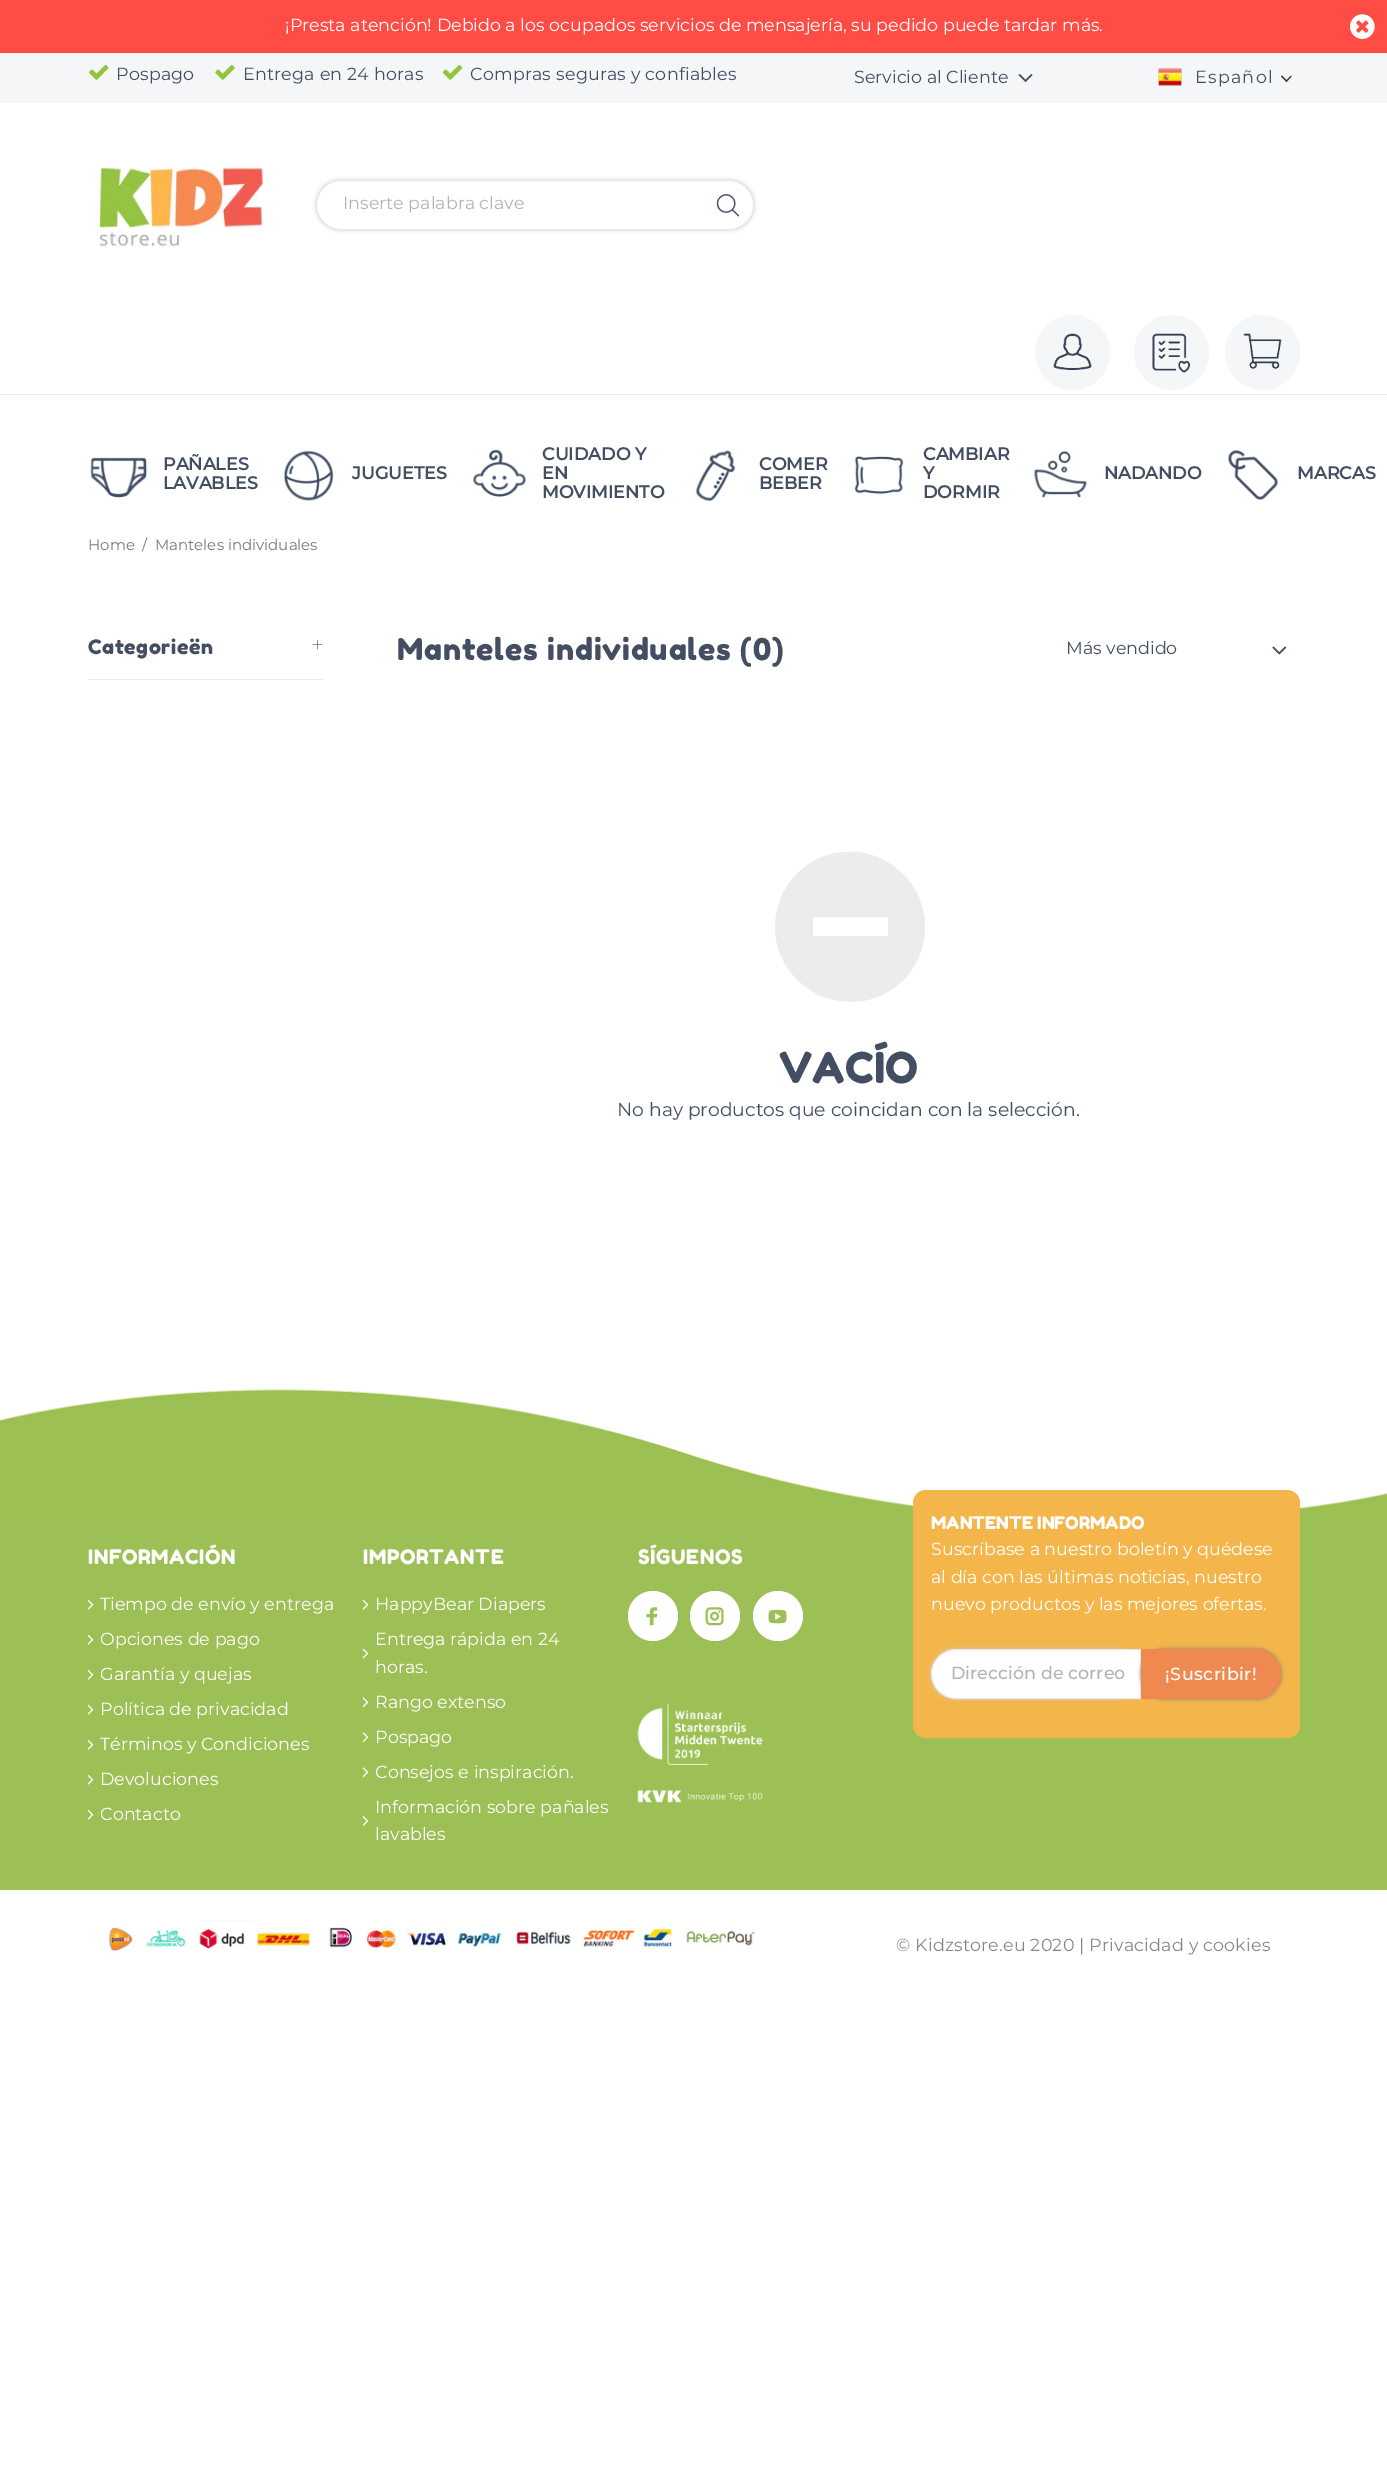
%!PS
<< /PageSize [1387 2482] /PageUsesTransparency true >> setpagedevice
/rgb { 3 { 255 div 3 1 roll } repeat setrgbcolor } def
/font { [ exch dup neg 0 0 3 -1 roll 0 0 ] selectfont } def
/text { moveto show } def
/alpha { dup .setfillconstantalpha .setstrokeconstantalpha } def
/circle { newpath 0 360 arc closepath } def
/roundrect { 5 dict begin { /r /h /w /y /x } { exch def } forall
  x r add y moveto x w add y 2 copy h add r arct x w add y h add x 1 index r arct
  x y h add x y r arct x y 2 copy exch w add exch r arct closepath end } def
/shadow { 12 dict begin { /a /b /q /h /w /y /x } { exch def } forall gsave /was 0 def
  9 -2 -9 { dup b mul 4 div /e exch def 1 sub .425 mul 2.718 exch exp 1 add a .99 .min exch div /now exch def
    1 1 now sub 1 was sub div sub alpha /was now def
    w h .min e 2 mul add 0 gt { x e sub y e sub w e 2 mul add h e 2 mul add
      q e add b .6 mul add w h .min 2 div e add .min 0 .max roundrect fill } if } for grestore end } def
/picture { 5 dict begin { /h /w /y /x /name } { exch def } forall
  gsave x y translate w h scale
  w h 8 [w 0 0 h 0 0] name (r) file false 3 colorimage grestore end } def
0 .pushpdf14devicefilter
0 2482 translate 1 -1 scale
4 setmiterlimit
255 255 255 rgb
0 0 1387 2482 rectfill
255 77 69 rgb
0 0 1387 53 rectfill
(img_01.rgb) 1350 14 25 25 picture
245 246 247 rgb
0 53 1387 50 rectfill
(img_02.rgb) 89 64 20 16 picture
(img_03.rgb) 215 64 20 16 picture
(img_04.rgb) 442 64 21 16 picture
(img_05.rgb) 1018 74 15 8 picture
(img_06.rgb) 1158 68 24 18 picture
58 58 58 rgb
1291 75.5 moveto 0.5 1 rlineto -5 5.5 rlineto -1 -1 rlineto closepath fill
1282 75.5 moveto 5.5 5.5 rlineto -1 1 rlineto -5.5 -5.5 rlineto closepath fill
233 231 231 rgb
0 394 1387 1 rectfill
(img_07.rgb) 96 167 171 81 picture
204 204 204 rgb
316 180 438 50 25 2 1 shadow
255 255 255 rgb
316.5 180.5 437 49 24.5 roundrect gsave fill grestore
233 231 231 rgb
stroke
(img_08.rgb) 716 194 24 23 picture
245 246 247 rgb
1072.5 352.5 37.5 circle fill
(img_09.rgb) 1053 333 39 37 picture
1171.5 352.5 37.5 circle fill
(img_10.rgb) 1152 333 38 40 picture
1262.5 352.5 37.5 circle fill
(img_11.rgb) 1243 333 39 36 picture
(img_12.rgb) 90 457 57 41 picture
(img_13.rgb) 283 450 51 51 picture
(img_14.rgb) 473 449 54 48 picture
(img_15.rgb) 695 450 41 52 picture
(img_16.rgb) 854 456 50 39 picture
(img_17.rgb) 1034 451 53 47 picture
(img_18.rgb) 1228 450 50 50 picture
233 231 231 rgb
88 679 235 1 rectfill
(img_19.rgb) 312 640 11 10 picture
(img_20.rgb) 1272 646 15 9 picture
235 236 238 rgb
879 858 moveto 47 20 61 79 28 118 rcurveto -11 13 -27 22 -44 25 rcurveto -14 2 -29 0 -42 -5 rcurveto -15 -7 -28 -18 -36 -32 rcurveto -28 -48 6 -110 61 -112 rcurveto 12 -1 23 1 33 6 rcurveto closepath 888 917 moveto -75 0 rlineto 0 19 rlineto 75 0 rlineto closepath fill
156 192 85 rgb
0 1528 1387 362 rectfill
(img_21.rgb) 0 1389 1387 139 picture
(img_22.rgb) 87 1599 7 11 picture
(img_22.rgb) 87 1634 7 11 picture
(img_22.rgb) 87 1669 7 11 picture
(img_22.rgb) 87 1704 7 11 picture
(img_22.rgb) 87 1739 7 11 picture
(img_22.rgb) 87 1774 7 11 picture
(img_22.rgb) 87 1809 7 11 picture
(img_22.rgb) 362 1599 7 11 picture
(img_23.rgb) 362 1648 7 11 picture
(img_24.rgb) 362 1697 7 11 picture
(img_24.rgb) 362 1732 7 11 picture
(img_24.rgb) 362 1767 7 11 picture
(img_25.rgb) 362 1816 7 10 picture
255 255 255 rgb
653 1616 25 circle fill
(img_26.rgb) 646 1607 12 19 picture
715 1616 25 circle fill
(img_27.rgb) 705 1607 19 19 picture
778 1616 25 circle fill
(img_28.rgb) 768 1609 19 15 picture
(img_29.rgb) 637 1703 126 62 picture
(img_30.rgb) 637 1790 126 13 picture
244 182 75 rgb
913 1490 387 248 13 roundrect fill
204 204 204 rgb
931 1649 210 50 25 2 1 shadow
255 255 255 rgb
956 1649.5 moveto 184.5 0 rlineto 0 49 rlineto -184.5 0 rlineto -13.5 0 -24.5 -11 -24.5 -24.5 rcurveto 0 -13.5 11 -24.5 24.5 -24.5 rcurveto closepath gsave fill grestore
233 231 231 rgb
stroke
119 119 119 rgb
1141 1649 140 50 25 2 1 shadow
239 137 80 rgb
1141.5 1649.5 moveto 114.5 0 rlineto 13.5 0 24.5 11 24.5 24.5 rcurveto 0 13.5 -11 24.5 -24.5 24.5 rcurveto -114.5 0 rlineto closepath gsave fill grestore
stroke
(img_31.rgb) 107 1920 648 36 picture
/Montserrat-Regular 17.5 font
255 255 255 rgb
(¡Presta atención! Debido a los ocupados servicios de mensajería, su pedido puede tardar más.) 285 31 text
67 78 99 rgb
116 80 moveto 0.2 0 (Pospago) ashow
243 80 moveto 0.2 0 (Entrega en 24 horas) ashow
470 80 moveto 0.2 0 (Compras seguras y confiables) ashow
(Servicio al Cliente) 854 83 text
1195 83 moveto 1.25 0 (Español) ashow
177 180 187 rgb
(Inserte palabra clave) 343 209 text
/Montserrat-Bold 17.5 font
67 78 99 rgb
(PAÑALES) 163 470 text
(LAVABLES) 163 489 text
(JUGUETES) 352 479 text
(CUIDADO Y) 542 460 text
(EN) 542 479 text
(MOVIMIENTO) 542 498 text
(COMER) 759 470 text
(BEBER) 759 489 text
(CAMBIAR) 923 460 text
(Y) 923 479 text
(DORMIR) 923 498 text
(NADANDO) 1104 479 text
(MARCAS) 1297 479 text
/Montserrat-Regular 15 font
119 119 119 rgb
(Home) 88 550 text
(/) 142 550 text
(Manteles individuales) 155 550 text
/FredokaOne-Regular 20 font
67 78 99 rgb
88 654 moveto 0.6 0 (Categorieën) ashow
/FredokaOne-Regular 30 font
397 660 moveto 0.9 0 (Manteles individuales \(0\)) ashow
/Montserrat-Regular 17.5 font
(Más vendido) 1066 654 text
/FredokaOne-Regular 42.5 font
(VACÍO) 779 1083 text
/Montserrat-Regular 18.75 font
(No hay productos que coincidan con la selección.) 617 1116 text
/FredokaOne-Regular 20 font
255 255 255 rgb
88 1564 moveto 0.6 0 (INFORMACIÓN) ashow
/Montserrat-Regular 17.5 font
(Tiempo de envío y entrega) 100 1610 text
(Opciones de pago) 100 1645 text
(Garantía y quejas) 100 1680 text
(Política de privacidad) 100 1715 text
(Términos y Condiciones) 100 1750 text
(Devoluciones) 100 1785 text
(Contacto) 100 1820 text
/FredokaOne-Regular 20 font
363 1564 moveto 0.6 0 (IMPORTANTE) ashow
/Montserrat-Regular 17.5 font
(HappyBear Diapers) 375 1610 text
(Entrega rápida en 24) 375 1645 text
(horas.) 375 1673 text
(Rango extenso) 375 1708 text
(Pospago) 375 1743 text
(Consejos e inspiración.) 375 1778 text
(Información sobre pañales) 375 1813 text
(lavables) 375 1840 text
/FredokaOne-Regular 20 font
638 1564 moveto 0.6 0 (SÍGUENOS) ashow
/FredokaOne-Regular 17.5 font
(MANTENTE INFORMADO) 931 1529 text
/Montserrat-Regular 17.5 font
(Suscríbase a nuestro boletín y quédese) 931 1555 text
(al día con las últimas noticias, nuestro) 931 1583 text
(nuevo productos y las mejores ofertas.) 931 1610 text
gsave
951 1666 174 18 rectclip
/Montserrat-Medium 17.5 font
177 180 187 rgb
(Dirección de correo) 951 1679 text
grestore
/Montserrat-Medium 17.5 font
1165 1680 moveto 0.5 0 (¡Suscribir!) ashow
/Montserrat-Regular 17.5 font
136 136 136 rgb
896 1951 moveto 0.2 0 (© Kidzstore.eu 2020 | Privacidad y cookies) ashow
.poppdf14devicefilter showpage
